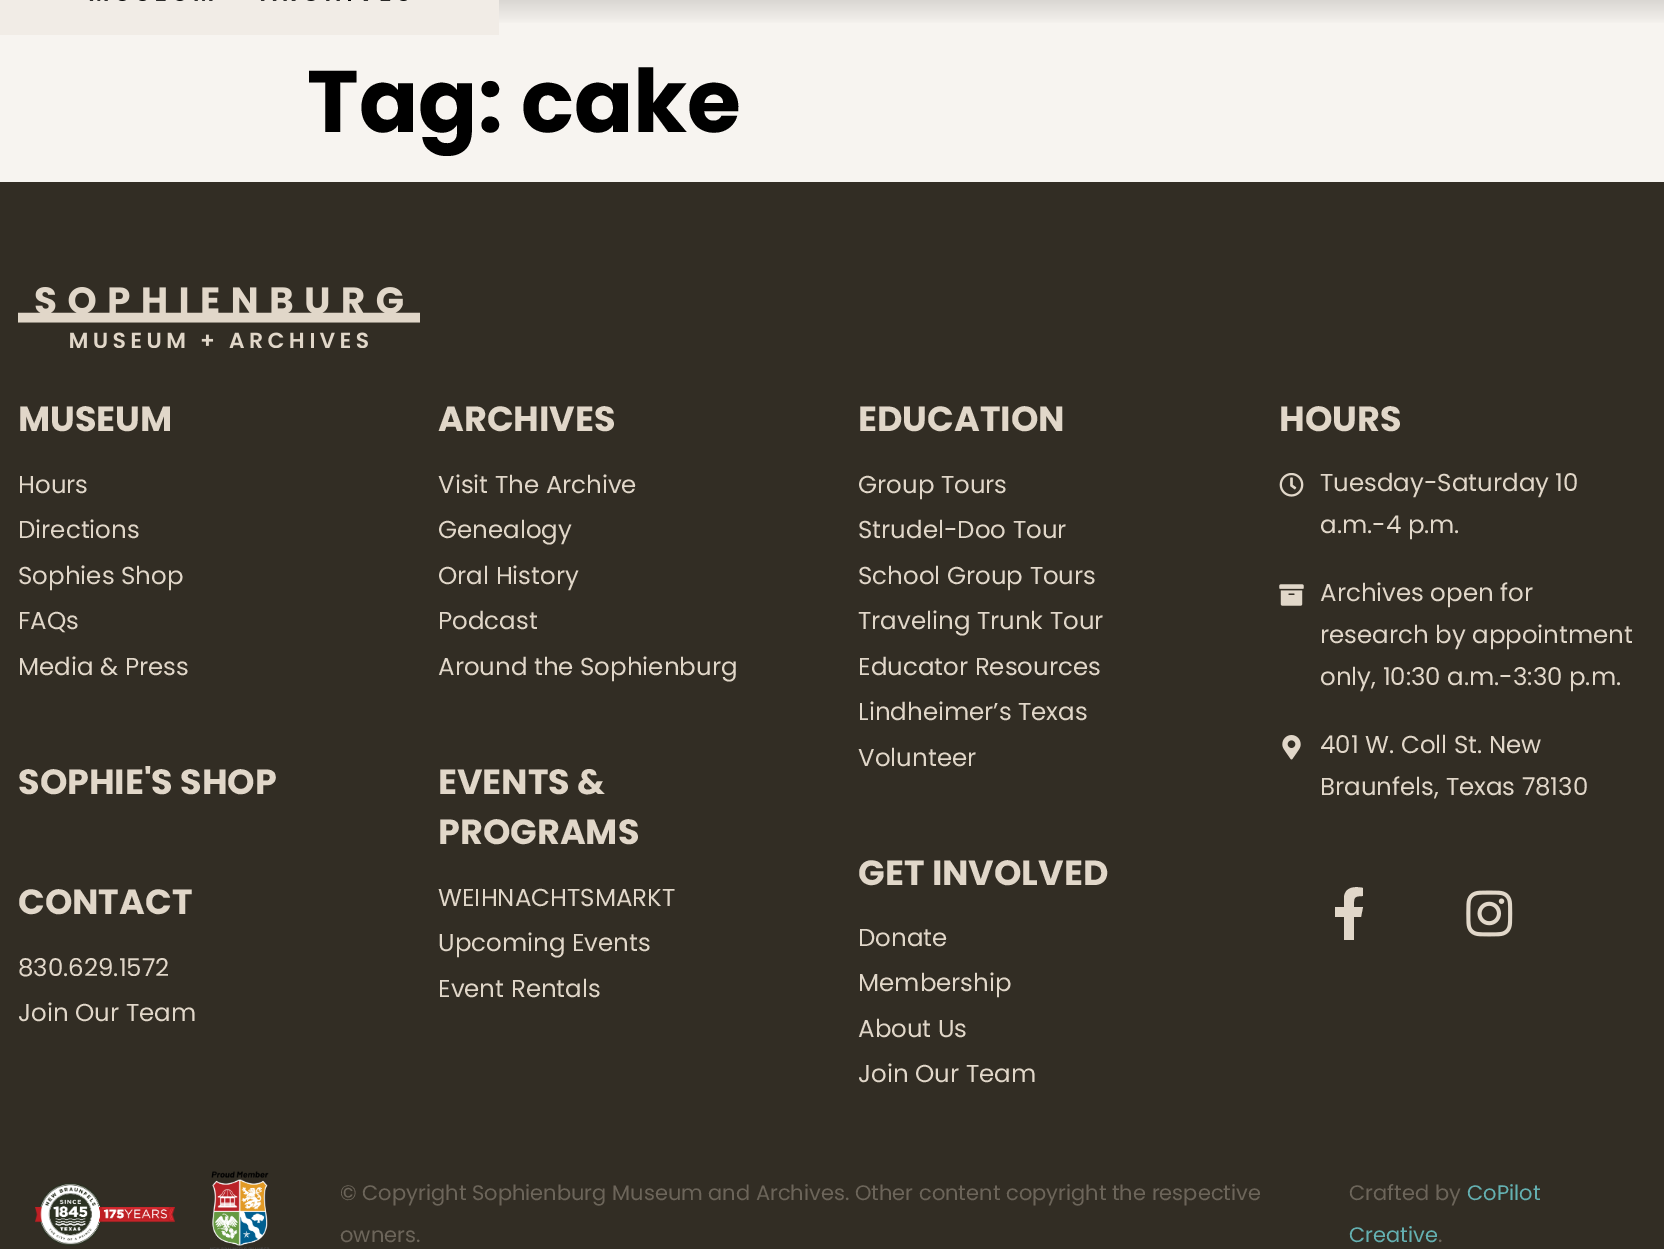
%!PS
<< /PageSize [1664 1249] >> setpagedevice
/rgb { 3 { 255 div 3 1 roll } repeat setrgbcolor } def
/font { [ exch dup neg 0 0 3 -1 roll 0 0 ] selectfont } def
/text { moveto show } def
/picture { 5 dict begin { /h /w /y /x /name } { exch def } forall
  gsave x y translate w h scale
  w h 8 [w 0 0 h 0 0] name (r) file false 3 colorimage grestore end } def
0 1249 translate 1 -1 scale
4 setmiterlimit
247 244 240 rgb
0 0 1664 1249 rectfill
gsave 0 0 moveto 1664 0 rlineto 0 23 rlineto -1664 0 rlineto closepath clip newpath
<< /ShadingType 2 /ColorSpace /DeviceRGB /Coords [832 -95 832 39] /Extend [true true] /Function << /FunctionType 3 /Domain [0 1] /Functions [<< /FunctionType 2 /Domain [0 1] /C0 [0.486 0.478 0.471] /C1 [0.486 0.478 0.471] /N 1 >> << /FunctionType 2 /Domain [0 1] /C0 [0.486 0.478 0.471] /C1 [0.969 0.957 0.941] /N 1 >> << /FunctionType 2 /Domain [0 1] /C0 [0.969 0.957 0.941] /C1 [0.969 0.957 0.941] /N 1 >>] /Bounds [0.1 0.9] /Encode [0 1 0 1 0 1] >> >> shfill grestore
241 236 230 rgb
0 0 499 35 rectfill
(img_01.rgb) 89 0 318 1 picture
50 45 36 rgb
0 182 1664 1067 rectfill
(img_02.rgb) 18 287 402 61 picture
(img_03.rgb) 1279 473 25 24 picture
(img_04.rgb) 1279 584 25 22 picture
(img_05.rgb) 1282 735 19 25 picture
225 215 201 rgb
1361 917 moveto 2 -10 rlineto -9 0 rlineto 0 -9 -1 -11 9 -11 rcurveto 0 -8 rlineto -8 -2 -18 -1 -19 9 rcurveto 0 10 rlineto -9 0 rlineto 0 10 rlineto 9 0 rlineto 0 23 rlineto 10 0 rlineto 0 -23 rlineto closepath fill
(img_06.rgb) 1466 890 47 47 picture
(img_07.rgb) 35 1183 140 63 picture
(img_08.rgb) 210 1171 60 78 picture
/Poppins-Bold 87.5 font
0 0 0 rgb
(Tag: cake) 307 132 text
/Poppins-Bold 35 font
225 215 201 rgb
(MUSEUM) 18 431 text
/Poppins-Regular 24.5 font
(Hours) 18 493 text
(Directions) 18 538 text
(Sophies Shop) 18 584 text
(FAQs) 18 629 text
(Media & Press) 18 675 text
/Poppins-Bold 35 font
(SOPHIE'S SHOP) 18 794 text
(CONTACT) 18 914 text
/Poppins-Regular 24.5 font
(830.629.1572) 18 976 text
(Join Our Team) 18 1021 text
/Poppins-Bold 35 font
(ARCHIVES) 438 431 text
/Poppins-Regular 24.5 font
(Visit The Archive) 438 493 text
(Genealogy) 438 538 text
(Oral History) 438 584 text
(Podcast) 438 629 text
(Around the Sophienburg) 438 675 text
/Poppins-Bold 35 font
(EVENTS &) 438 794 text
(PROGRAMS) 438 844 text
/Poppins-Regular 24.5 font
(WEIHNACHTSMARKT) 438 906 text
(Upcoming Events) 438 951 text
(Event Rentals) 438 997 text
/Poppins-Bold 35 font
(EDUCATION) 858 431 text
/Poppins-Regular 24.5 font
(Group Tours) 858 493 text
(Strudel-Doo Tour) 858 538 text
(School Group Tours) 858 584 text
(Traveling Trunk Tour) 858 629 text
(Educator Resources) 858 675 text
(Lindheimer’s Texas) 858 720 text
(Volunteer) 858 766 text
/Poppins-Bold 35 font
(GET INVOLVED) 858 885 text
/Poppins-Regular 24.5 font
(Donate) 858 946 text
(Membership) 858 991 text
(About Us) 858 1037 text
(Join Our Team) 858 1082 text
/Poppins-Bold 35 font
(HOURS) 1279 431 text
/Poppins-Regular 24.5 font
(Tuesday-Saturday 10) 1320 491 text
(a.m.-4 p.m.) 1320 533 text
(Archives open for) 1320 601 text
(research by appointment) 1320 643 text
(only, 10:30 a.m.-3:30 p.m.) 1320 685 text
(401 W. Coll St. New) 1320 753 text
(Braunfels, Texas 78130) 1320 795 text
/Poppins-Regular 21 font
108 101 90 rgb
(© Copyright Sophienburg Museum and Archives. Other content copyright the respective) 340 1200 text
(owners.) 340 1242 text
(Crafted by) 1349 1200 text
100 176 177 rgb
(CoPilot) 1467 1200 text
(Creative) 1349 1242 text
108 101 90 rgb
(.) 1438 1242 text
showpage
